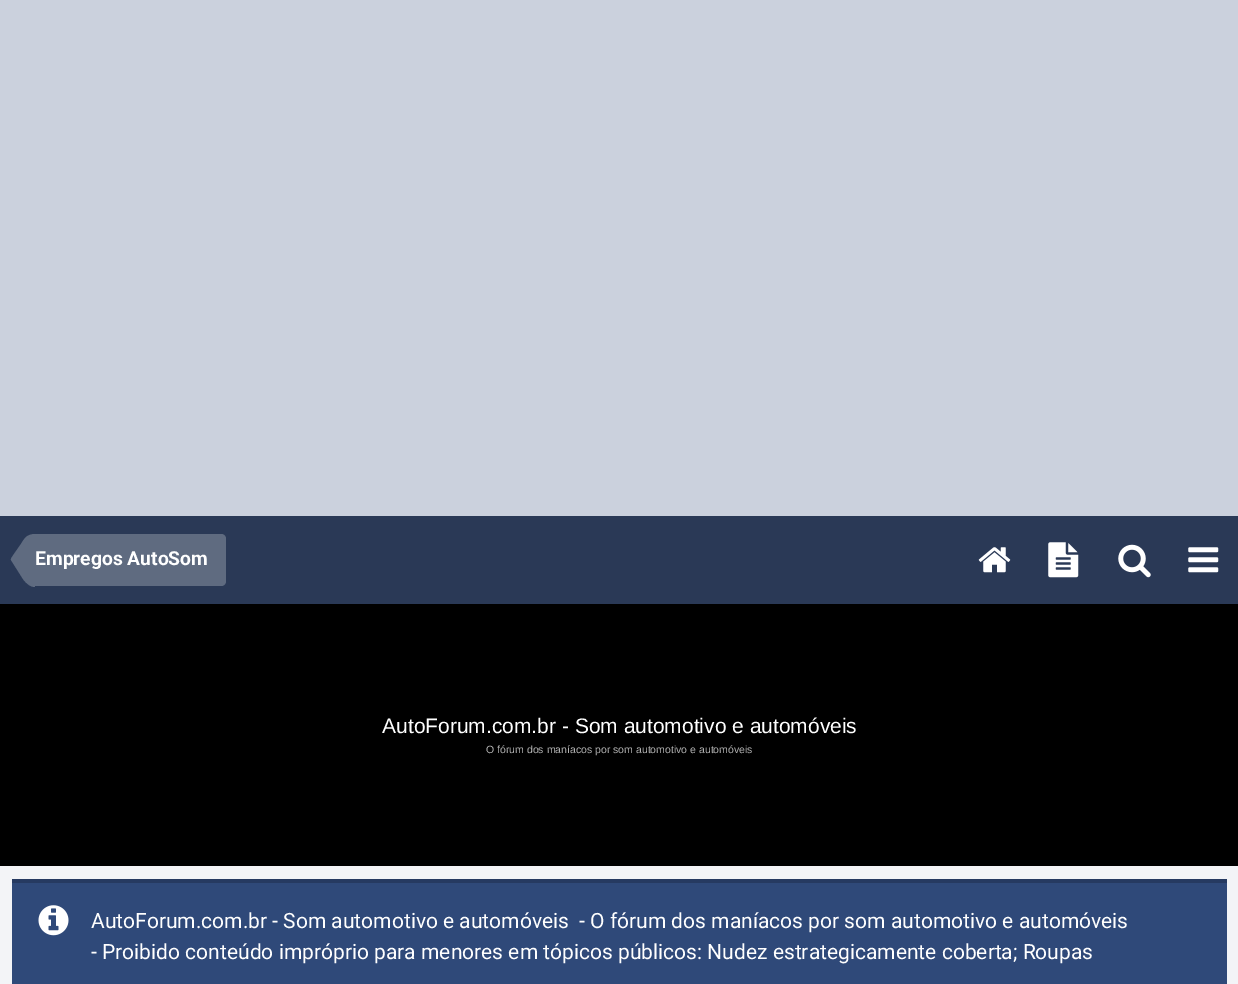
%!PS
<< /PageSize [1238 984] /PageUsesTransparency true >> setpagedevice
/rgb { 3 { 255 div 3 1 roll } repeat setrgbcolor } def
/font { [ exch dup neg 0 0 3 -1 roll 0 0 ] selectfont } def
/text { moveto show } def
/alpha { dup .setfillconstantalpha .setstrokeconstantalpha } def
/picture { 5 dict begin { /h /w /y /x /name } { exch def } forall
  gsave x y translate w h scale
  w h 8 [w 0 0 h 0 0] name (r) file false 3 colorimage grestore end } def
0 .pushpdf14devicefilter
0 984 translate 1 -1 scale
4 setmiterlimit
203 209 221 rgb
0 0 1238 984 rectfill
42 57 86 rgb
0 516 1238 88 rectfill
95 107 128 rgb
35 534 moveto 186 0 rlineto 3 0 5 2 5 5 rcurveto 0 42 rlineto 0 3 -2 5 -5 5 rcurveto -186 0 rlineto closepath fill
35 560 moveto 0 27 rlineto -4 0 -8 -2.5 -12 -8 rcurveto -12 -19 rlineto closepath 35 560 moveto -24 0 rlineto -0.5 -1.5 1.5 -3.5 2 -4.5 rcurveto 8 -11.5 rlineto 1.5 -2.5 3 -5 5 -7 rcurveto 2.5 -2 6 -3 9 -3 rcurveto closepath fill
(img_01.rgb) 978 547 33 26 picture
(img_02.rgb) 1048 542 31 36 picture
(img_03.rgb) 1118 544 33 34 picture
(img_04.rgb) 1188 547 31 26 picture
47 73 121 rgb
0 866 1238 118 rectfill
0.94 alpha
255 255 255 rgb
0 866 1238 118 rectfill
1 alpha
0 0 0 rgb
0 604 1238 262 rectfill
47 73 121 rgb
12 883 1215 101 rectfill
38 58 97 rgb
12 879 1215 4 rectfill
(img_05.rgb) 38 905 31 31 picture
/Roboto-Bold 19.25 font
255 255 255 rgb
(Empregos AutoSom) 35 565 text
/LiberationSans-Regular 21 font
(AutoForum.com.br - Som automotivo e automóveis) 382 733 text
/LiberationSans-Regular 10.5 font
179 179 179 rgb
(O fórum dos maníacos por som automotivo e automóveis) 486 753 text
/Roboto-Regular 21 font
255 255 255 rgb
(AutoForum.com.br - Som automotivo e automóveis  - O fórum dos maníacos por som automotivo e automóveis) 91 928 text
(- Proibido conteúdo impróprio para menores em tópicos públicos: Nudez estrategicamente coberta; Roupas) 91 959 text
.poppdf14devicefilter showpage
